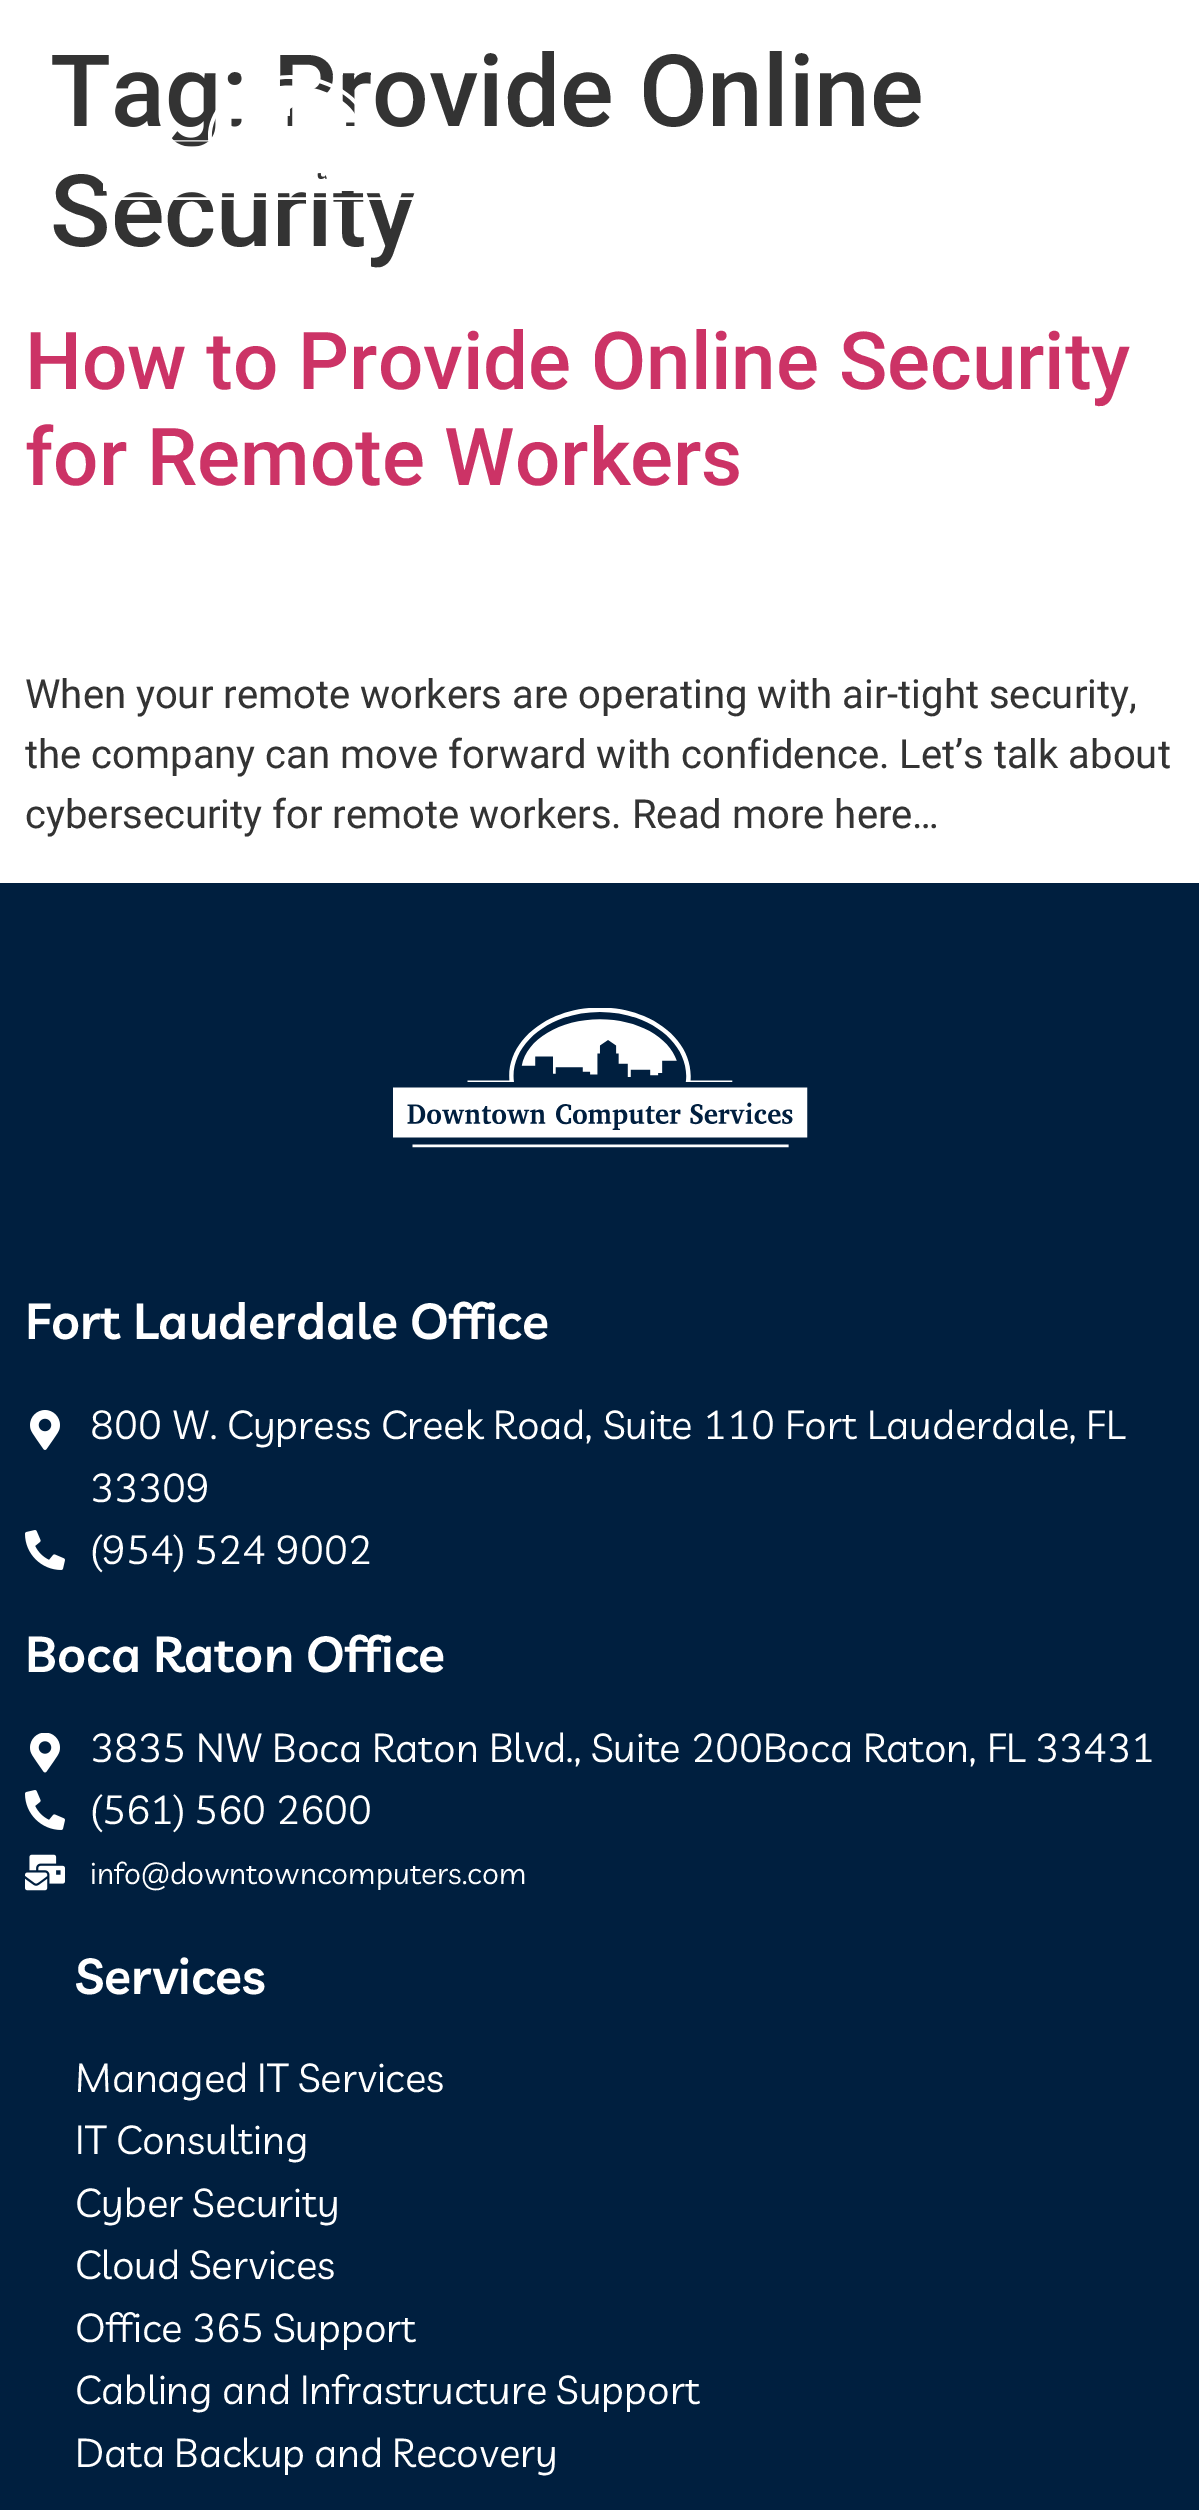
%!PS
<< /PageSize [1199 2510] >> setpagedevice
/rgb { 3 { 255 div 3 1 roll } repeat setrgbcolor } def
/font { [ exch dup neg 0 0 3 -1 roll 0 0 ] selectfont } def
/text { moveto show } def
/picture { 5 dict begin { /h /w /y /x /name } { exch def } forall
  gsave x y translate w h scale
  w h 8 [w 0 0 h 0 0] name (r) file false 3 colorimage grestore end } def
0 2510 translate 1 -1 scale
4 setmiterlimit
255 255 255 rgb
0 0 1199 2510 rectfill
0 31 63 rgb
0 883 1199 1627 rectfill
(img_02.rgb) 393 1008 415 140 picture
(img_03.rgb) 30 1410 30 40 picture
(img_04.rgb) 25 1530 40 40 picture
(img_05.rgb) 30 1733 30 40 picture
(img_04.rgb) 25 1790 40 40 picture
(img_06.rgb) 25 1854 40 37 picture
/Roboto-Medium 100 font
51 51 51 rgb
(Tag: Provide Online) 50 126 text
(Security) 50 246 text
/Roboto-Medium 80 font
204 51 102 rgb
(How to Provide Online Security) 25 389 text
(for Remote Workers) 25 485 text
/Roboto-Regular 40 font
51 51 51 rgb
(When your remote workers are operating with air-tight security,) 25 708 text
(the company can move forward with confidence. Let’s talk about) 25 768 text
(cybersecurity for remote workers. Read more here…) 25 828 text
(img_01.rgb) 103 75 310 125 picture
/Livvic-SemiBold 50 font
255 255 255 rgb
(Fort Lauderdale Office) 25 1339 text
/Livvic-Regular 40 font
90 1439 moveto 1 0 32 (800 W. Cypress Creek Road, Suite 110 Fort Lauderdale, FL) widthshow
(33309) 90 1502 text
(\(954\) 524 9002) 90 1564 text
/Livvic-SemiBold 50 font
(Boca Raton Office) 25 1672 text
/Livvic-Regular 40 font
90 1762 moveto 1 0 32 (3835 NW Boca Raton Blvd., Suite 200Boca Raton, FL 33431) widthshow
(\(561\) 560 2600) 90 1824 text
/Livvic-Regular 30 font
(info@downtowncomputers.com) 90 1884 text
/Livvic-SemiBold 50 font
(Services) 75 1994 text
/Livvic-Regular 40 font
(Managed IT Services) 75 2092 text
(IT Consulting) 75 2154 text
(Cyber Security) 75 2217 text
(Cloud Services) 75 2279 text
(Office 365 Support) 75 2342 text
(Cabling and Infrastructure Support) 75 2404 text
(Data Backup and Recovery) 75 2467 text
showpage
